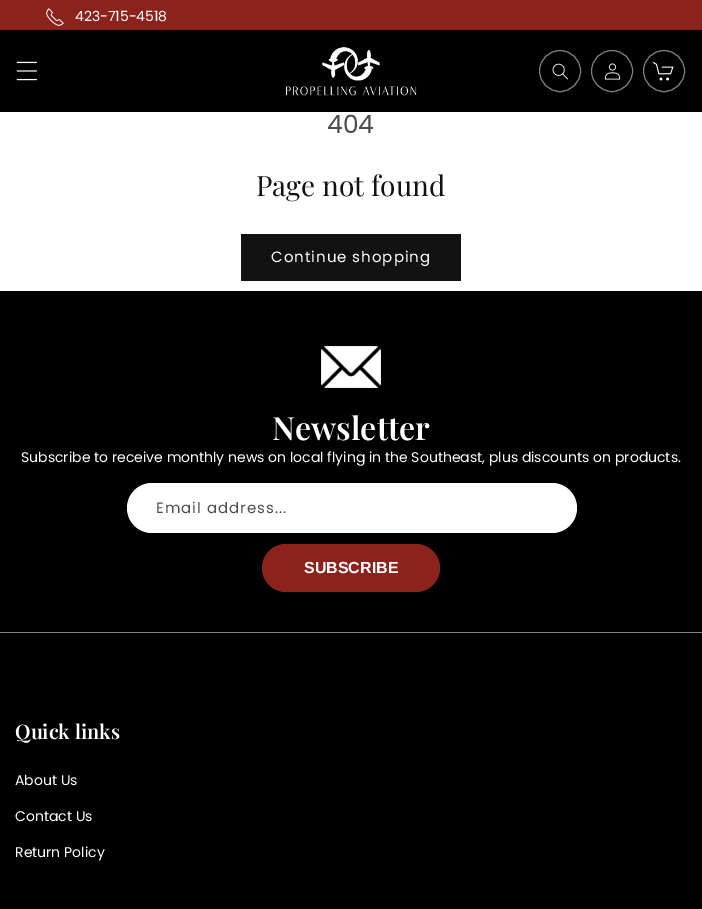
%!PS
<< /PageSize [702 909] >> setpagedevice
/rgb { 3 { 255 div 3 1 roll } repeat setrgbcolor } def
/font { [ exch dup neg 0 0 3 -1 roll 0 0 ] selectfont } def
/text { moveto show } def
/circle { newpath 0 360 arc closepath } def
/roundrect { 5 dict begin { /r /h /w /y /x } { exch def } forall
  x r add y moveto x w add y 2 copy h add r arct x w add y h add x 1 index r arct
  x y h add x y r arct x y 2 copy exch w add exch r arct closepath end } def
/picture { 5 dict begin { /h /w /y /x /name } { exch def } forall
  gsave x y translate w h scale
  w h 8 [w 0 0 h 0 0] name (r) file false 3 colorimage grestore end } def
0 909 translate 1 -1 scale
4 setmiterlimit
255 255 255 rgb
0 0 702 909 rectfill
140 34 28 rgb
0 0 702 29 rectfill
130 33 27 rgb
0 29 702 1 rectfill
(img_01.rgb) 46 8 18 18 picture
0 0 0 rgb
0 30 702 82 rectfill
(img_02.rgb) 16 61 21 20 picture
(img_03.rgb) 285 47 132 49 picture
128 128 128 rgb
560 71 20.5 circle stroke
(img_04.rgb) 552 63 17 17 picture
612 71 20.5 circle stroke
(img_05.rgb) 604 63 17 17 picture
664 71 20.5 circle stroke
(img_06.rgb) 652 61 22 20 picture
18 18 18 rgb
241 234 220 47 rectfill
0 0 0 rgb
0 291 702 341 rectfill
(img_07.rgb) 321 346 60 42 picture
255 255 255 rgb
127 483 450 50 25 roundrect fill
140 34 28 rgb
262 544 178 48 24 roundrect fill
0 0 0 rgb
0 633 702 276 rectfill
128 128 128 rgb
0 632 702 1 rectfill
/Poppins-Regular 14 font
255 255 255 rgb
(423-715-4518) 75 21 text
/Poppins-Regular 25 font
77 77 77 rgb
(404) 327 133 text
/PlayfairDisplay-Regular 28 font
18 18 18 rgb
(Page not found) 256 196 text
/Poppins-Regular 15 font
255 255 255 rgb
271 262 moveto 1 0 (Continue shopping) ashow
/PlayfairDisplay-SemiBold 32 font
(Newsletter) 272 440 text
/Poppins-Regular 14 font
(Subscribe to receive monthly news on local flying in the Southeast, plus discounts on products.) 21 462 text
/Poppins-Regular 15 font
77 77 77 rgb
156 513 moveto 1 0 (Email address...) ashow
/LiberationSans-Bold 16 font
255 255 255 rgb
(SUBSCRIBE) 304 573 text
/PlayfairDisplay-SemiBold 20 font
(Quick links) 15 739 text
/Poppins-Regular 14 font
(About Us) 15 785 text
(Contact Us) 15 821 text
(Return Policy) 15 857 text
showpage
